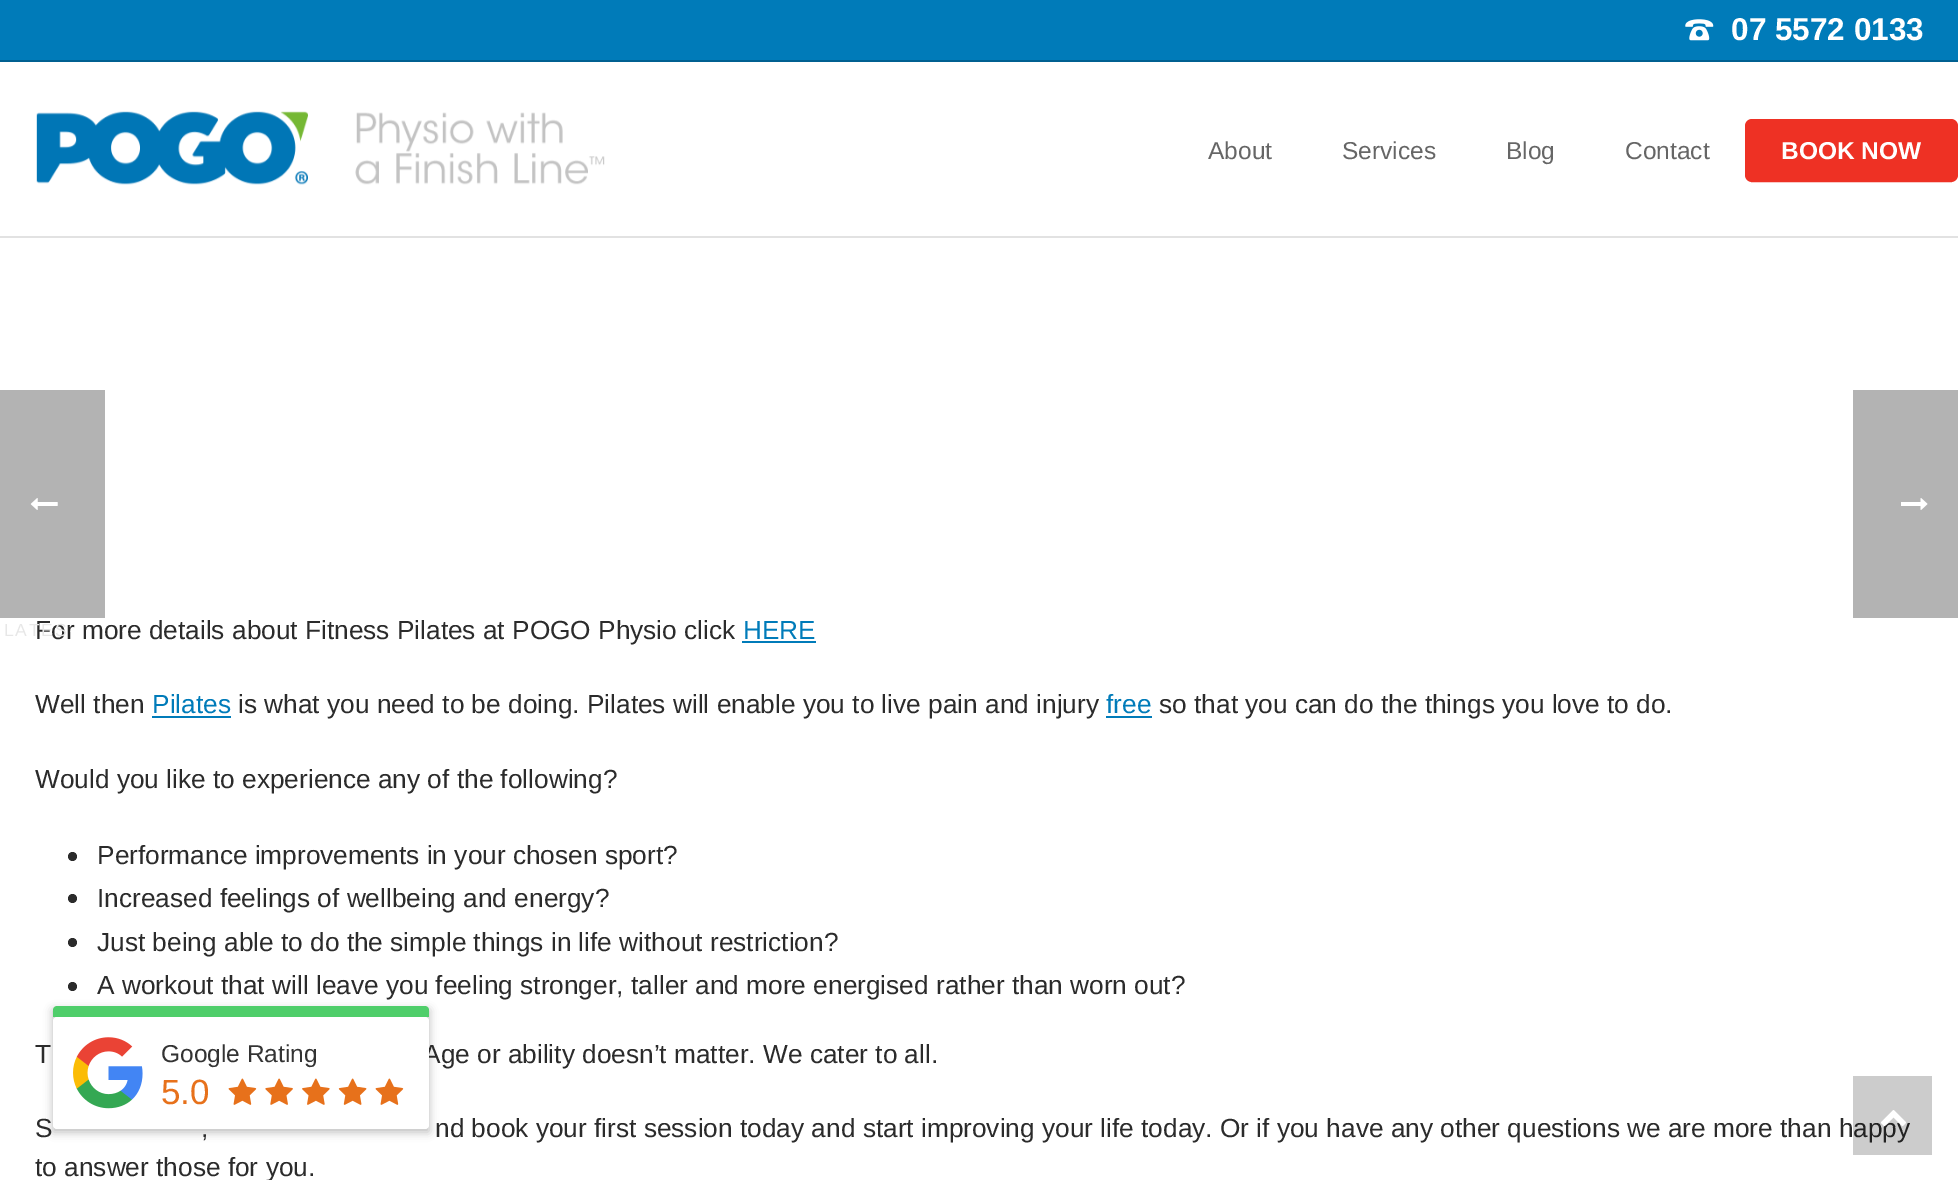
%!PS
<< /PageSize [1958 1180] /PageUsesTransparency true >> setpagedevice
/rgb { 3 { 255 div 3 1 roll } repeat setrgbcolor } def
/font { [ exch dup neg 0 0 3 -1 roll 0 0 ] selectfont } def
/text { moveto show } def
/alpha { dup .setfillconstantalpha .setstrokeconstantalpha } def
/circle { newpath 0 360 arc closepath } def
/roundrect { 5 dict begin { /r /h /w /y /x } { exch def } forall
  x r add y moveto x w add y 2 copy h add r arct x w add y h add x 1 index r arct
  x y h add x y r arct x y 2 copy exch w add exch r arct closepath end } def
/shadow { 12 dict begin { /a /b /q /h /w /y /x } { exch def } forall gsave /was 0 def
  9 -2 -9 { dup b mul 4 div /e exch def 1 sub .425 mul 2.718 exch exp 1 add a .99 .min exch div /now exch def
    1 1 now sub 1 was sub div sub alpha /was now def
    w h .min e 2 mul add 0 gt { x e sub y e sub w e 2 mul add h e 2 mul add
      q e add b .6 mul add w h .min 2 div e add .min 0 .max roundrect fill } if } for grestore end } def
/picture { 5 dict begin { /h /w /y /x /name } { exch def } forall
  gsave x y translate w h scale
  w h 8 [w 0 0 h 0 0] name (r) file false 3 colorimage grestore end } def
0 .pushpdf14devicefilter
0 1180 translate 1 -1 scale
4 setmiterlimit
255 255 255 rgb
0 0 1958 1180 rectfill
0 123 185 rgb
0 0 1958 60 rectfill
0 96 145 rgb
0 60 1958 2 rectfill
(img_01.rgb) 1685 19 29 22 picture
226 226 226 rgb
0 236 1958 2 rectfill
(img_02.rgb) 36 111 569 74 picture
238 49 36 rgb
1746 120 211 61 6 roundrect gsave fill grestore
2 setlinewidth
stroke
0 123 185 rgb
742 641 74 2 rectfill
152 716 79 2 rectfill
1106 716 46 2 rectfill
43 43 43 rgb
72.5 856.5 4.5 circle fill
72.5 898.5 4.5 circle fill
72.5 942.5 4.5 circle fill
72.5 986.5 4.5 circle fill
179 179 179 rgb
1853 390 105 228 rectfill
(img_03.rgb) 1901 498 27 12 picture
0 390 105 228 rectfill
(img_04.rgb) 30 498 28 12 picture
0 0 0 rgb
53 1010 376 122 0 4.5 0.26 shadow
79 206 106 rgb
57 1006 moveto 368 0 rlineto 2 0 4 2 4 4 rcurveto 0 7 rlineto -376 0 rlineto 0 -7 rlineto 0 -2 2 -4 4 -4 rcurveto closepath fill
/LiberationSans-Bold 31.5 font
255 255 255 rgb
(07 5572 0133) 1731 40 text
/LiberationSans-Regular 24.5 font
102 102 102 rgb
(About) 1208 159 text
(Services) 1342 159 text
(Blog) 1506 159 text
(Contact) 1625 159 text
/LiberationSans-Bold 24.5 font
255 255 255 rgb
(BOOK NOW) 1781 159 text
/LiberationSans-Regular 26.25 font
43 43 43 rgb
(For more details about Fitness Pilates at POGO Physio click) 35 639 text
0 123 185 rgb
(HERE) 743 639 text
43 43 43 rgb
(Well then) 35 713 text
0 123 185 rgb
(Pilates) 152 713 text
43 43 43 rgb
(is what you need to be doing. Pilates will enable you to live pain and injury) 238 713 text
0 123 185 rgb
(free) 1106 713 text
43 43 43 rgb
(so that you can do the things you love to do.) 1159 713 text
(Would you like to experience any of the following?) 35 788 text
(Performance improvements in your chosen sport?) 97 864 text
(Increased feelings of wellbeing and energy?) 97 907 text
(Just being able to do the simple things in life without restriction?) 97 951 text
(A workout that will leave you feeling stronger, taller and more energised rather than worn out?) 97 994 text
(T) 35 1063 text
(Age or ability doesn’t matter. We cater to all.) 423 1063 text
(S) 35 1137 text
(,) 201 1137 text
(nd book your first session today and start improving your life today. Or if you have any other questions we are more than happy) 435 1137 text
(to answer those for you.) 35 1176 text
/LiberationSans-Regular 17.5 font
231 231 231 rgb
4 636 moveto 1.75 0 (LATES) ashow
255 255 255 rgb
53 1017 376 112 4 roundrect fill
(img_05.rgb) 73 1037 70 72 picture
/LiberationSans-Regular 24.5 font
51 51 51 rgb
(Google Rating) 161 1062 text
/LiberationSans-Regular 35 font
231 113 27 rgb
(5.0) 161 1104 text
(img_06.rgb) 228 1078 29 27 picture
(img_07.rgb) 265 1078 28 27 picture
(img_08.rgb) 302 1078 28 27 picture
(img_09.rgb) 338 1078 29 27 picture
(img_06.rgb) 375 1078 29 27 picture
0.2 alpha
0 0 0 rgb
1853 1076 79 79 rectfill
1 alpha
(img_10.rgb) 1881 1110 25 17 picture
.poppdf14devicefilter showpage
